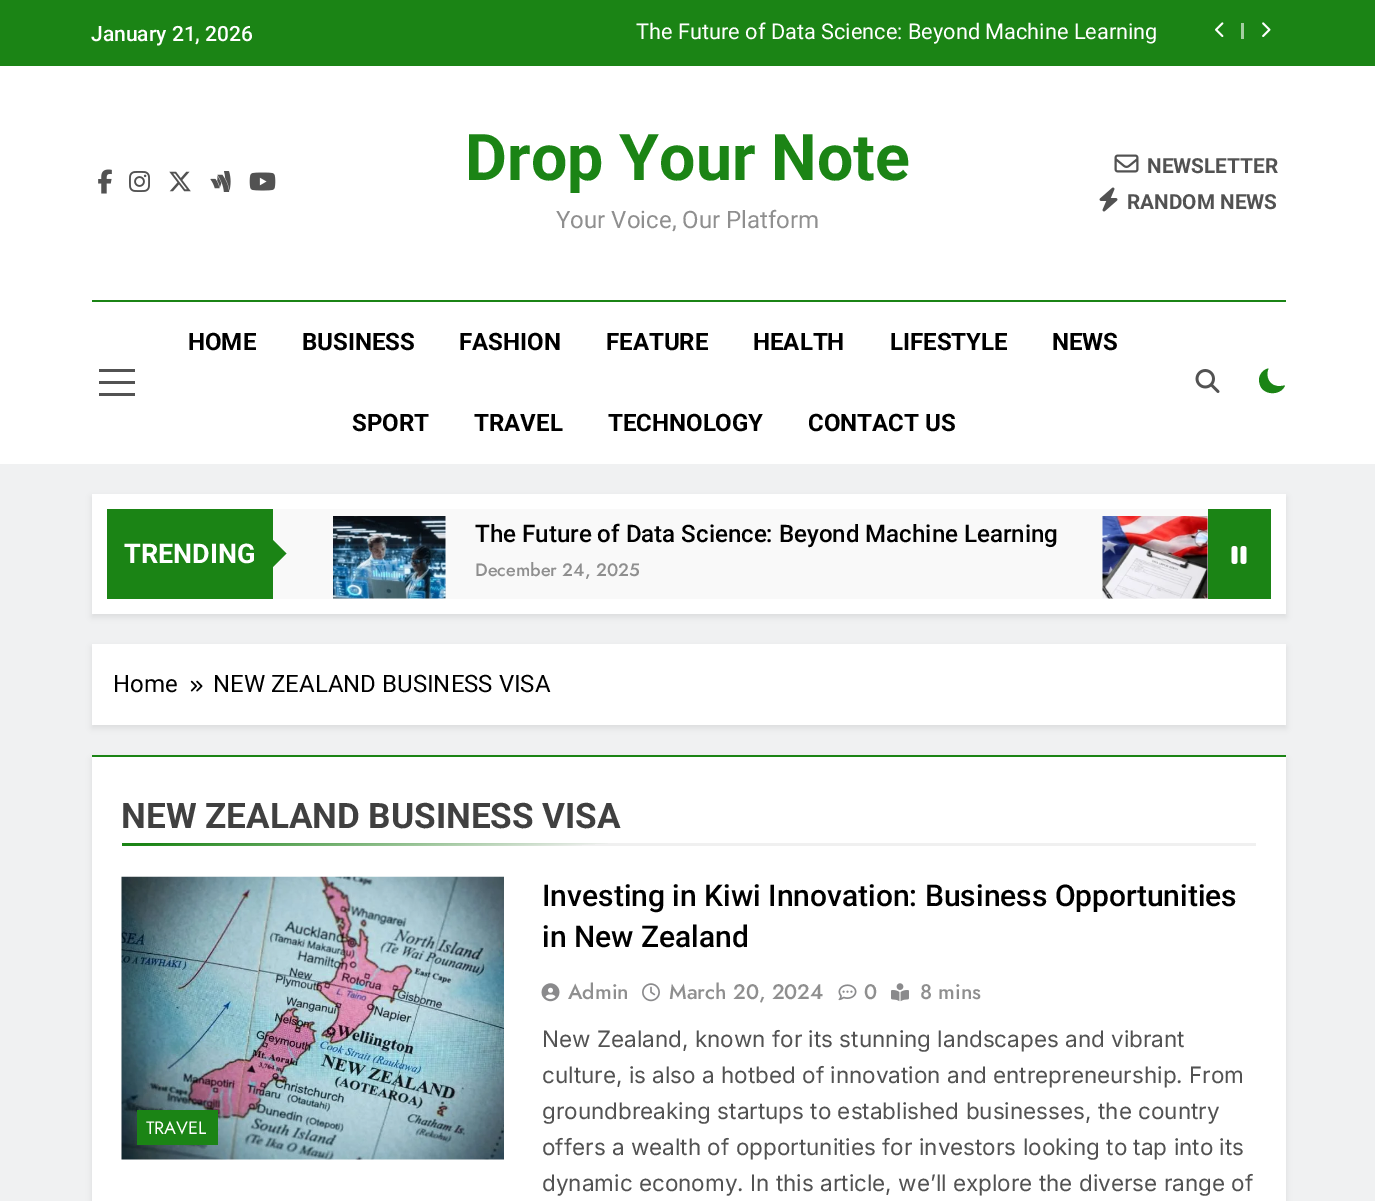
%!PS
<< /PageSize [1375 1201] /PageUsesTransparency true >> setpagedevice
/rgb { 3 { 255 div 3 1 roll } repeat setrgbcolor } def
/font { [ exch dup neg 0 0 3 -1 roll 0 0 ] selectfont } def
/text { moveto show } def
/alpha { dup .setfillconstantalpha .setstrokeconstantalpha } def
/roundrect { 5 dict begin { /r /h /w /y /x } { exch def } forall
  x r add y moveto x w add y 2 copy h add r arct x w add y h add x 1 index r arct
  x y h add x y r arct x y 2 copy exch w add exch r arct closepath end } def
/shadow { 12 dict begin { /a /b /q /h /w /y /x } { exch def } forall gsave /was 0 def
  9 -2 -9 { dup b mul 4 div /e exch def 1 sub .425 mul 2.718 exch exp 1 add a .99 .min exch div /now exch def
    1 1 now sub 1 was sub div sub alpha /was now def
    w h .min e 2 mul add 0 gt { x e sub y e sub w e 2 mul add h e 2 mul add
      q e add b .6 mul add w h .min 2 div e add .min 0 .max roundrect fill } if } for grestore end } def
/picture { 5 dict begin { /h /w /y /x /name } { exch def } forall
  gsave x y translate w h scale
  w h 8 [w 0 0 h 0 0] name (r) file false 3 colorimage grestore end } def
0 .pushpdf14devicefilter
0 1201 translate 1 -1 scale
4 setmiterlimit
240 241 242 rgb
0 0 1375 1201 rectfill
27 132 21 rgb
0 0 1375 66 rectfill
(img_01.rgb) 1215 22 9 15 picture
164 206 161 rgb
1241 23 3 16 rectfill
(img_02.rgb) 1262 22 9 15 picture
255 255 255 rgb
0 66 1375 398 rectfill
(img_03.rgb) 98 169 14 25 picture
(img_04.rgb) 129 171 21 21 picture
(img_05.rgb) 169 171 22 21 picture
(img_06.rgb) 210 171 21 21 picture
(img_07.rgb) 249 172 27 19 picture
(img_08.rgb) 1114 154 25 19 picture
(img_09.rgb) 1099 187 19 25 picture
27 132 21 rgb
92 300 1194 2 rectfill
82 82 82 rgb
99 369 36 3 rectfill
99 381 36 3 rectfill
99 393 36 3 rectfill
(img_10.rgb) 1195 369 25 24 picture
27 132 21 rgb
1285 385.5 moveto -4 0.5 rlineto -12 1.5 -16 -10 -12.5 -17.5 rcurveto -3.5 0.5 -6.5 3 -8 6 rcurveto -1.5 2.5 -2 5.5 -1 8.5 rcurveto 2 12.5 21 13.5 25.5 2.5 rcurveto closepath fill
0 0 0 rgb
92 497 1194 120 0 3 0.08 shadow
255 255 255 rgb
92 494 1194 120 rectfill
27 132 21 rgb
107 509 166 90 rectfill
249 249 249 rgb
273 509 935 90 rectfill
27 132 21 rgb
271.5 568.5 moveto 0 -30 rlineto 15 15 rlineto closepath fill
(img_11.rgb) 333 516 113 83 picture
(img_12.rgb) 1102 516 106 83 picture
1208 509 63 90 rectfill
(img_13.rgb) 1231 546 16 18 picture
0 0 0 rgb
92 647 1194 81 0 3 0.08 shadow
255 255 255 rgb
92 644 1194 81 rectfill
(img_14.rgb) 190 680 13 12 picture
0 0 0 rgb
92 759 1194 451 0 3 0.08 shadow
255 255 255 rgb
92 757 1194 444 rectfill
27 132 21 rgb
92 755 1194 2 rectfill
240 240 240 rgb
621 843 635 3 rectfill
gsave 122 843 moveto 499 0 rlineto 0 3 rlineto -499 0 rlineto closepath clip newpath
<< /ShadingType 2 /ColorSpace /DeviceRGB /Coords [370 826 373 863] /Extend [true true] /Function << /FunctionType 2 /Domain [0 1] /C0 [0.106 0.518 0.082] /C1 [0.941 0.941 0.941] /N 1 >> >> shfill grestore
(img_15.rgb) 121 876 383 284 picture
27 132 21 rgb
137 1110 81 35 rectfill
(img_16.rgb) 541 983 19 19 picture
(img_17.rgb) 642 983 18 19 picture
(img_18.rgb) 838 984 19 17 picture
(img_19.rgb) 891 983 18 19 picture
/Roboto-Medium 21 font
255 255 255 rgb
(January 21, 2026) 91 41 text
/Roboto-Regular 21.75 font
(The Future of Data Science: Beyond Machine Learning) 636 39 text
/Roboto-Bold 64.5 font
27 132 21 rgb
(Drop Your Note) 465 180 text
/Roboto-Regular 24 font
143 143 143 rgb
(Your Voice, Our Platform) 556 228 text
/Roboto-Bold 20.75 font
82 82 82 rgb
(NEWSLETTER) 1147 173 text
(RANDOM NEWS) 1127 209 text
/Roboto-Bold 24 font
0 0 0 rgb
(HOME) 188 350 text
(BUSINESS) 302 350 text
(FASHION) 459 350 text
(FEATURE) 606 350 text
(HEALTH) 753 350 text
(LIFESTYLE) 890 350 text
(NEWS) 1052 350 text
(SPORT) 352 431 text
(TRAVEL) 474 431 text
(TECHNOLOGY) 608 431 text
(CONTACT US) 808 431 text
/Roboto-Bold 27 font
255 255 255 rgb
(TRENDING) 124 563 text
/Roboto-Medium 24.1 font
0 0 0 rgb
(The Future of Data Science: Beyond Machine Learning) 475 542 text
/Jost-Medium 18 font
143 143 143 rgb
(December 24, 2025) 475 576 text
/Roboto-Regular 24 font
0 0 0 rgb
(Home) 113 692 text
(NEW ZEALAND BUSINESS VISA) 213 692 text
/Roboto-Bold 35.1 font
64 64 64 rgb
(NEW ZEALAND BUSINESS VISA) 121 828 text
/Jost-Regular 18 font
255 255 255 rgb
(TRAVEL) 146 1134 text
/Roboto-Medium 30 font
0 0 0 rgb
(Investing in Kiwi Innovation: Business Opportunities) 542 906 text
(in New Zealand) 542 947 text
/Jost-Medium 21 font
143 143 143 rgb
(Admin) 568 999 text
(March 20, 2024) 669 999 text
(0) 864 999 text
(8 mins) 920 999 text
/Inter-Regular 22.5 font
82 82 82 rgb
(New Zealand, known for its stunning landscapes and vibrant) 542 1047 text
(culture, is also a hotbed of innovation and entrepreneurship. From) 542 1083 text
(groundbreaking startups to established businesses, the country) 542 1119 text
(offers a wealth of opportunities for investors looking to tap into its) 542 1155 text
(dynamic economy. In this article, we’ll explore the diverse range of) 542 1191 text
.poppdf14devicefilter showpage
